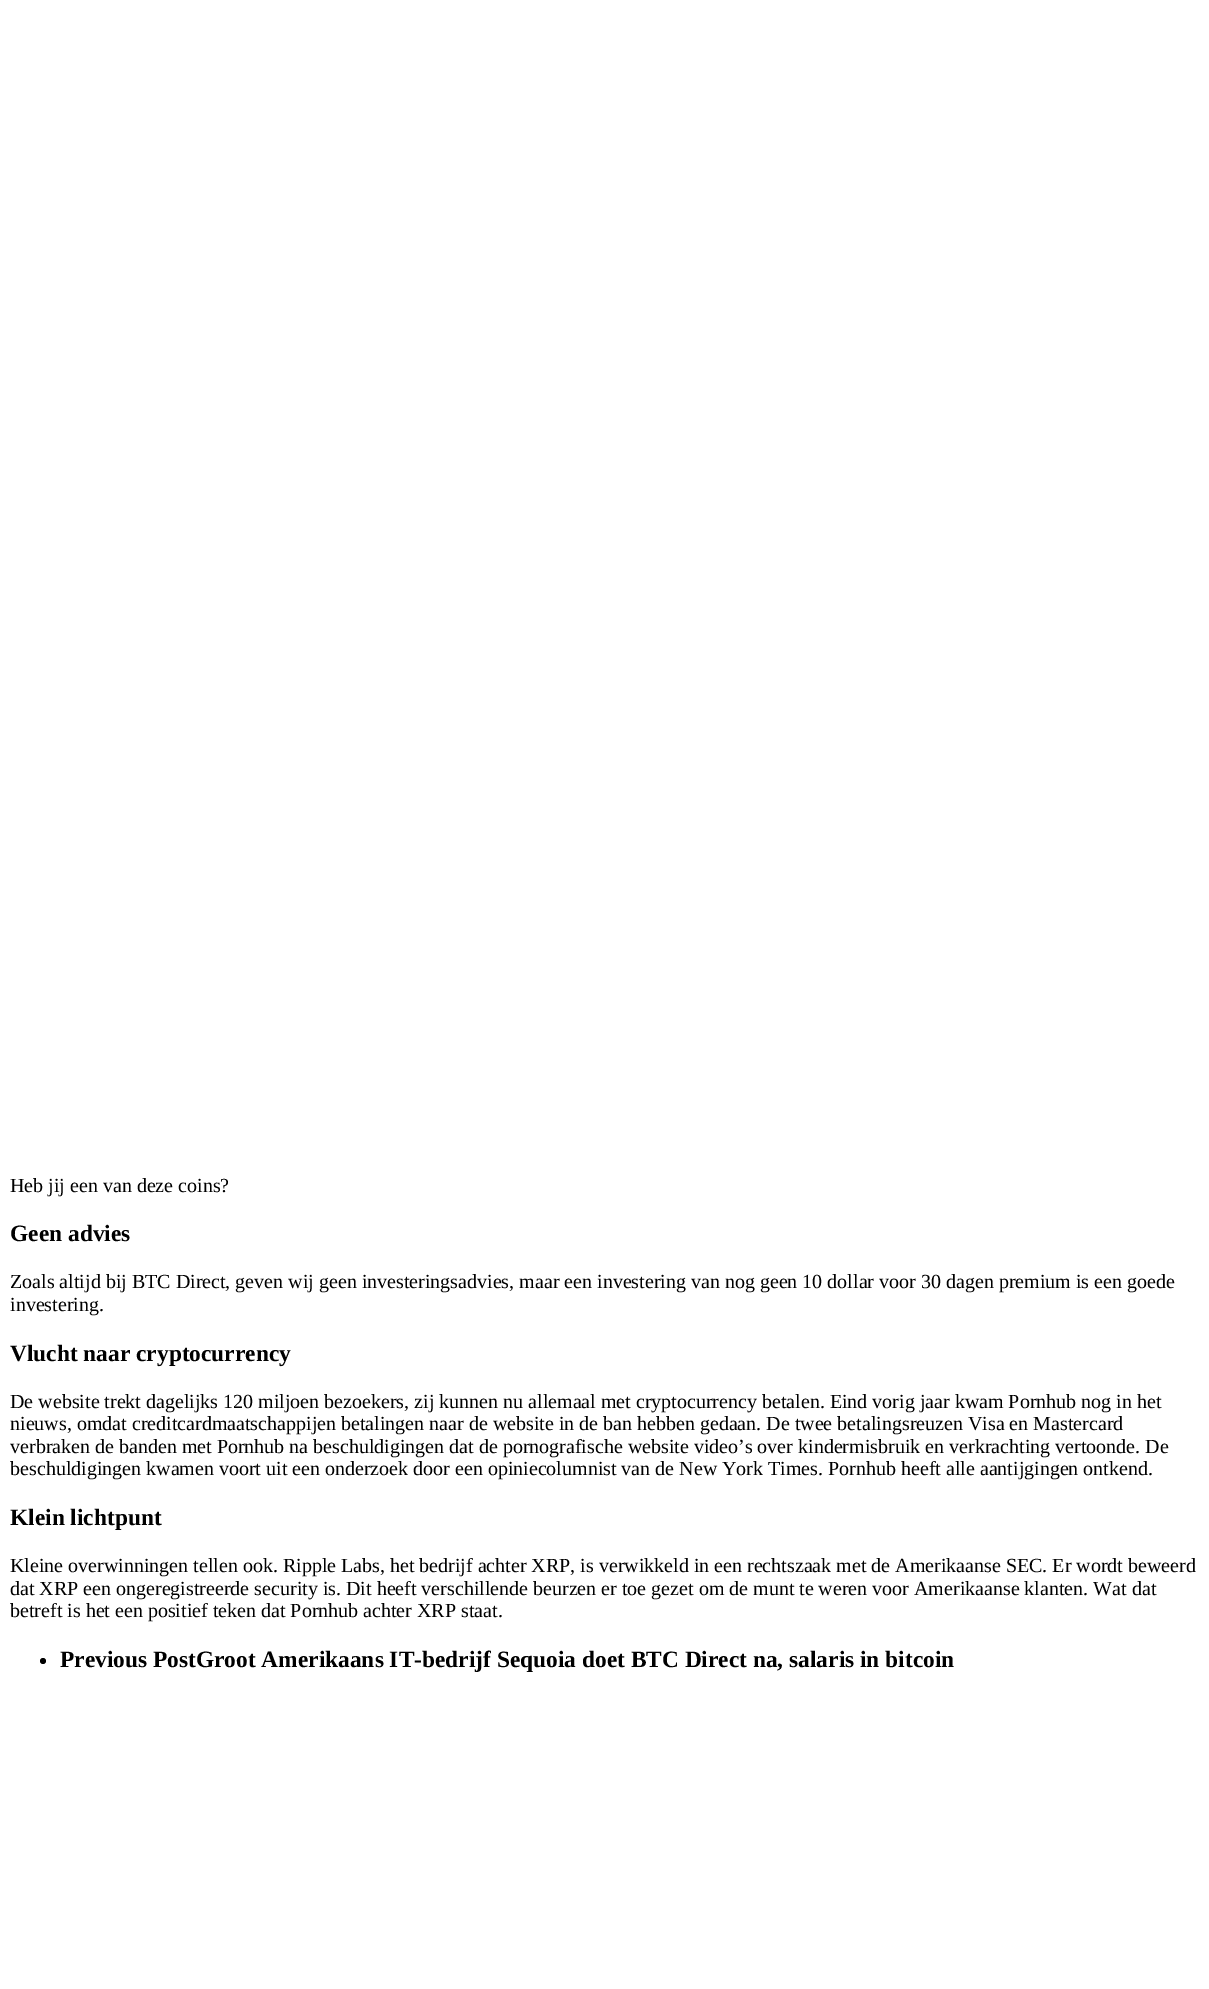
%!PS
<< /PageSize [1209 1989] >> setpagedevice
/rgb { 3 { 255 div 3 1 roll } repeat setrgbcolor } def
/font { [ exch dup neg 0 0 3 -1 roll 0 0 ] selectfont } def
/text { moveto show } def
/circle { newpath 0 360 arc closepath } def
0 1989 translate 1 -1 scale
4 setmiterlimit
255 255 255 rgb
0 0 1209 1989 rectfill
0 0 0 rgb
43 1661 3 circle fill
/LiberationSerif-Regular 20 font
(Heb jij een van deze coins?) 10 1192 text
/LiberationSerif-Bold 23.4 font
(Geen advies) 10 1241 text
/LiberationSerif-Regular 20 font
(Zoals altijd bij BTC Direct, geven wij geen investeringsadvies, maar een investering van nog geen 10 dollar voor 30 dagen premium is een goede) 10 1288 text
(investering.) 10 1311 text
/LiberationSerif-Bold 23.4 font
(Vlucht naar cryptocurrency) 10 1361 text
/LiberationSerif-Regular 20 font
(De website trekt dagelijks 120 miljoen bezoekers, zij kunnen nu allemaal met cryptocurrency betalen. Eind vorig jaar kwam Pornhub nog in het) 10 1408 text
(nieuws, omdat creditcardmaatschappijen betalingen naar de website in de ban hebben gedaan. De twee betalingsreuzen Visa en Mastercard) 10 1430 text
(verbraken de banden met Pornhub na beschuldigingen dat de pornografische website video’s over kindermisbruik en verkrachting vertoonde. De) 10 1453 text
(beschuldigingen kwamen voort uit een onderzoek door een opiniecolumnist van de New York Times. Pornhub heeft alle aantijgingen ontkend.) 10 1475 text
/LiberationSerif-Bold 23.4 font
(Klein lichtpunt) 10 1525 text
/LiberationSerif-Regular 20 font
(Kleine overwinningen tellen ook. Ripple Labs, het bedrijf achter XRP, is verwikkeld in een rechtszaak met de Amerikaanse SEC. Er wordt beweerd) 10 1572 text
(dat XRP een ongeregistreerde security is. Dit heeft verschillende beurzen er toe gezet om de munt te weren voor Amerikaanse klanten. Wat dat) 10 1595 text
(betreft is het een positief teken dat Pornhub achter XRP staat.) 10 1617 text
/LiberationSerif-Bold 23.4 font
(Previous PostGroot Amerikaans IT-bedrijf Sequoia doet BTC Direct na, salaris in bitcoin) 60 1667 text
showpage
